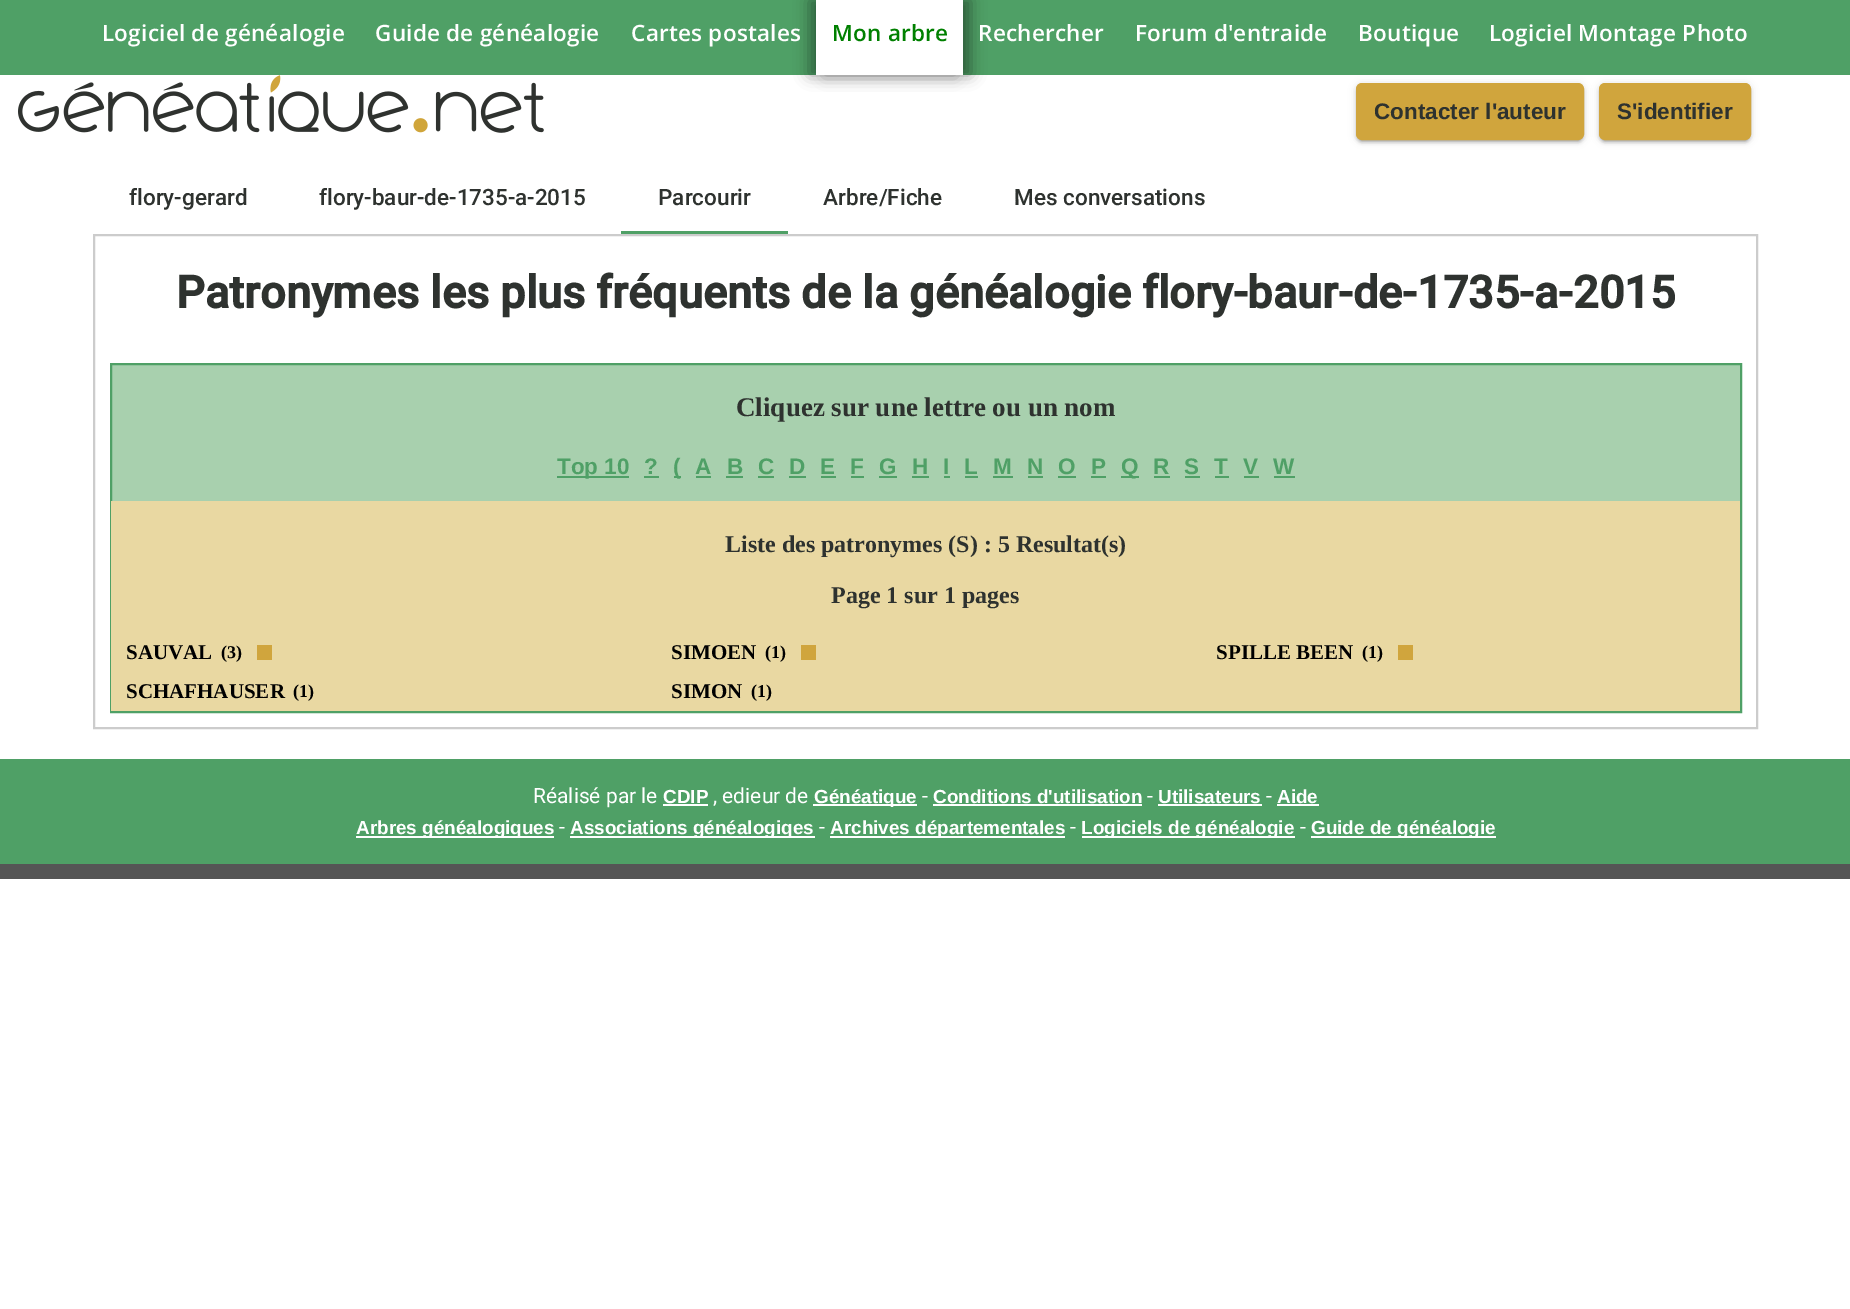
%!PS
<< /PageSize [1850 1309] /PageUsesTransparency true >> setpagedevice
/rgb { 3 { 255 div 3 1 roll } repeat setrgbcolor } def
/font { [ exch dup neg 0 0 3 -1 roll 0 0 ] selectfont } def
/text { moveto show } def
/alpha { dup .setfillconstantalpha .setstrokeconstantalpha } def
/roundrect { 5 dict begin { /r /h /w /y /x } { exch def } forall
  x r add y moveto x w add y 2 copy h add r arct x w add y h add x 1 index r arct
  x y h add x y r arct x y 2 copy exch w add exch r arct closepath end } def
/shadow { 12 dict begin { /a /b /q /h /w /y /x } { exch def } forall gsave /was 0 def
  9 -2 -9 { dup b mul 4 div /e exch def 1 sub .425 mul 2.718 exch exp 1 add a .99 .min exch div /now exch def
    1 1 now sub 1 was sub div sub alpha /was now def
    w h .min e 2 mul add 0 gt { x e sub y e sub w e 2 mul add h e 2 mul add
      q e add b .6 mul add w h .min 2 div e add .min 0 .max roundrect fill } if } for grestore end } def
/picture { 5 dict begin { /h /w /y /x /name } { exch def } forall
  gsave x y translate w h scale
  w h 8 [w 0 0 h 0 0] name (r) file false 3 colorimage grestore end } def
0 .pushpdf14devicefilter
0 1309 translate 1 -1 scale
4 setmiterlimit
255 255 255 rgb
0 0 1850 1309 rectfill
79 160 102 rgb
0 0 1850 75 rectfill
0 0 0 rgb
809 0 147 75 0 7.5 0.35 shadow
824 0 147 75 0 7.5 0.35 shadow
255 255 255 rgb
816 0 147 75 rectfill
(img_01.rgb) 18 75 526 58 picture
0 0 0 rgb
1356 84 228 57 6 4 0.12 shadow
1356 86 228 57 6 1.5 0.14 shadow
1359 90 222 51 3 1 0.2 shadow
208 165 61 rgb
1357 84 226 55 5 roundrect gsave fill grestore
2 setlinewidth
stroke
0 0 0 rgb
1599 84 152 57 6 4 0.12 shadow
1599 86 152 57 6 1.5 0.14 shadow
1602 90 146 51 3 1 0.2 shadow
208 165 61 rgb
1600 84 150 55 5 roundrect gsave fill grestore
stroke
79 160 102 rgb
621 231 167 3 rectfill
204 204 204 rgb
94 235 1663 493 rectstroke
168 208 174 rgb
112 365 1628 136 rectfill
79 160 102 rgb
111 364 1630 348 rectstroke
557 476 72 2 rectfill
644 476 15 2 rectfill
674 476 7 2 rectfill
696 476 15 2 rectfill
726 476 17 2 rectfill
758 476 16 2 rectfill
789 476 17 2 rectfill
821 476 15 2 rectfill
851 476 13 2 rectfill
879 476 18 2 rectfill
912 476 17 2 rectfill
944 476 6 2 rectfill
965 476 13 2 rectfill
993 476 20 2 rectfill
1028 476 15 2 rectfill
1058 476 18 2 rectfill
1091 476 15 2 rectfill
1121 476 18 2 rectfill
1154 476 16 2 rectfill
1185 476 15 2 rectfill
1215 476 14 2 rectfill
1244 476 15 2 rectfill
1274 476 21 2 rectfill
233 216 162 rgb
111 501 1629 210 rectfill
208 165 61 rgb
257 645 15 15 rectfill
801 645 15 15 rectfill
1398 645 15 15 rectfill
79 160 102 rgb
0 759 1850 105 rectfill
85 85 85 rgb
0 864 1850 15 rectfill
255 255 255 rgb
663 804 45 2 rectfill
813 804 104 2 rectfill
933 804 209 2 rectfill
1158 804 104 2 rectfill
1277 804 42 2 rectfill
356 836 198 2 rectfill
570 836 245 2 rectfill
830 836 235 2 rectfill
1082 836 213 2 rectfill
1311 836 185 2 rectfill
/OpenSans-SemiBold 22.5 font
102 41 moveto 0.25 0 (Logiciel de généalogie) ashow
375 41 moveto 0.25 0 (Guide de généalogie) ashow
631 41 moveto 0.25 0 (Cartes postales) ashow
0 128 0 rgb
832 41 moveto 0.25 0 (Mon arbre) ashow
255 255 255 rgb
978 41 moveto 0.25 0 (Rechercher) ashow
1135 41 moveto 0.25 0 (Forum d'entraide) ashow
1358 41 moveto 0.25 0 (Boutique) ashow
1489 41 moveto 0.25 0 (Logiciel Montage Photo) ashow
/LiberationSans-Bold 22.5 font
46 50 47 rgb
(Contacter l'auteur) 1374 119 text
(S'identifier) 1617 119 text
/Roboto-Medium 22.5 font
(flory-gerard) 129 205 text
(flory-baur-de-1735-a-2015) 319 205 text
(Parcourir) 658 205 text
(Arbre/Fiche) 823 205 text
(Mes conversations) 1014 205 text
/Roboto-Bold 45 font
(Patronymes les plus fréquents de la généalogie flory-baur-de-1735-a-2015) 176 308 text
/LiberationSerif-Bold 27 font
(Cliquez sur une lettre ou un nom) 736 416 text
/LiberationSans-Bold 22.5 font
79 160 102 rgb
(Top 10) 557 474 text
(?) 644 474 text
(\() 673 474 text
(A) 695 474 text
(B) 727 474 text
(C) 758 474 text
(D) 789 474 text
(E) 820 474 text
(F) 850 474 text
(G) 879 474 text
(H) 912 474 text
(I) 943 474 text
(L) 964 474 text
(M) 993 474 text
(N) 1027 474 text
(O) 1058 474 text
(P) 1091 474 text
(Q) 1121 474 text
(R) 1153 474 text
(S) 1184 474 text
(T) 1214 474 text
(V) 1243 474 text
(W) 1273 474 text
/LiberationSerif-Bold 24 font
46 50 47 rgb
(Liste des patronymes \(S\) : 5 Resultat\(s\)) 725 552 text
(Page 1 sur 1 pages) 831 603 text
/LiberationSerif-Bold 21 font
0 0 0 rgb
(SAUVAL) 126 659 text
/LiberationSerif-Bold 18 font
(\(3\)) 221 658 text
/LiberationSerif-Bold 21 font
(SIMOEN) 671 659 text
/LiberationSerif-Bold 18 font
(\(1\)) 765 658 text
/LiberationSerif-Bold 21 font
(SPILLE BEEN) 1216 659 text
/LiberationSerif-Bold 18 font
(\(1\)) 1362 658 text
/LiberationSerif-Bold 21 font
(SCHAFHAUSER) 126 698 text
/LiberationSerif-Bold 18 font
(\(1\)) 293 697 text
/LiberationSerif-Bold 21 font
(SIMON) 671 698 text
/LiberationSerif-Bold 18 font
(\(1\)) 751 697 text
/Roboto-Regular 21 font
255 255 255 rgb
(Réalisé par le) 533 803 text
/LiberationSans-Bold 18.9 font
(CDIP) 663 803 text
/Roboto-Regular 21 font
(, edieur de) 713 803 text
/LiberationSans-Bold 18.9 font
(Généatique) 814 803 text
/Roboto-Regular 21 font
(-) 922 803 text
/LiberationSans-Bold 18.9 font
(Conditions d'utilisation) 933 803 text
/Roboto-Regular 21 font
(-) 1147 803 text
/LiberationSans-Bold 18.9 font
(Utilisateurs) 1158 803 text
/Roboto-Regular 21 font
(-) 1266 803 text
/LiberationSans-Bold 18.9 font
(Aide) 1277 803 text
(Arbres généalogiques) 356 834 text
/Roboto-Regular 21 font
(-) 559 834 text
/LiberationSans-Bold 18.9 font
(Associations généalogiqes) 570 834 text
/Roboto-Regular 21 font
(-) 819 834 text
/LiberationSans-Bold 18.9 font
(Archives départementales) 830 834 text
/Roboto-Regular 21 font
(-) 1070 834 text
/LiberationSans-Bold 18.9 font
(Logiciels de généalogie) 1081 834 text
/Roboto-Regular 21 font
(-) 1300 834 text
/LiberationSans-Bold 18.9 font
(Guide de généalogie) 1311 834 text
.poppdf14devicefilter showpage
